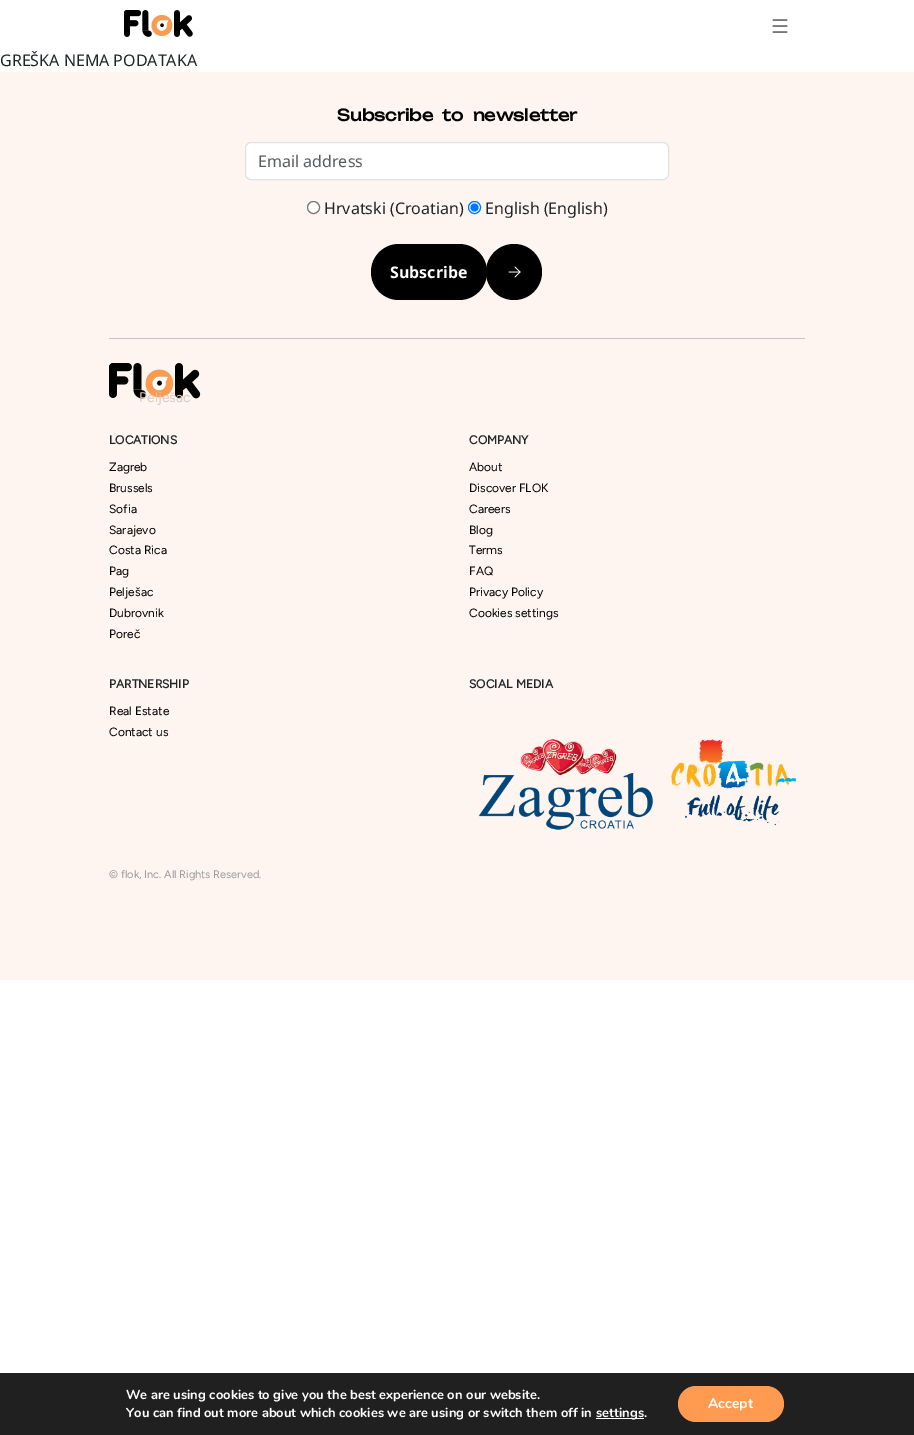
%!PS
<< /PageSize [914 1435] >> setpagedevice
/rgb { 3 { 255 div 3 1 roll } repeat setrgbcolor } def
/font { [ exch dup neg 0 0 3 -1 roll 0 0 ] selectfont } def
/text { moveto show } def
/circle { newpath 0 360 arc closepath } def
/roundrect { 5 dict begin { /r /h /w /y /x } { exch def } forall
  x r add y moveto x w add y 2 copy h add r arct x w add y h add x 1 index r arct
  x y h add x y r arct x y 2 copy exch w add exch r arct closepath end } def
/picture { 5 dict begin { /h /w /y /x /name } { exch def } forall
  gsave x y translate w h scale
  w h 8 [w 0 0 h 0 0] name (r) file false 3 colorimage grestore end } def
0 1435 translate 1 -1 scale
4 setmiterlimit
255 255 255 rgb
0 0 914 1435 rectfill
255 245 240 rgb
0 72 914 908 rectfill
255 255 255 rgb
245.5 142.5 423 37 5.5 roundrect gsave fill grestore
222 226 230 rgb
stroke
255 255 255 rgb
313.5 207.5 6 circle gsave fill grestore
118 118 118 rgb
stroke
255 255 255 rgb
474.5 207.5 6 circle gsave fill grestore
0 117 255 rgb
stroke
474.5 207.5 4 circle fill
0 0 0 rgb
371 244 116 56 28 roundrect fill
514 272 28 circle fill
(img_01.rgb) 508 266 13 12 picture
200 193 190 rgb
109 338 696 1 rectfill
(img_02.rgb) 109 363 92 36 picture
(img_03.rgb) 478 739 176 91 picture
(img_04.rgb) 671 739 126 92 picture
(img_05.rgb) 124 10 69 27 picture
(img_06.rgb) 772 19 16 14 picture
32 32 32 rgb
0 1373 914 62 rectfill
255 255 255 rgb
596 1418 48 1 rectfill
255 155 80 rgb
678 1386 106 36 18 roundrect fill
/NotoSans-Regular 16 font
33 37 41 rgb
(GREŠKA NEMA PODATAKA) 0 66 text
/Unbounded-Bold 16 font
0 0 0 rgb
337 121 moveto 5 0 32 (Subscribe to newsletter) widthshow
/NotoSans-Regular 16 font
89 92 95 rgb
(Email address) 258 167 text
33 37 41 rgb
(Hrvatski \(Croatian\)) 324 214 text
(English \(English\)) 485 214 text
/NotoSans-Bold 16 font
255 255 255 rgb
(Subscribe) 390 278 text
/Figtree-Bold 12 font
33 37 41 rgb
(LOCATIONS) 109 444 text
/Figtree-Regular 12 font
0 0 0 rgb
(Zagreb) 109 471 text
(Brussels) 109 492 text
(Sofia) 109 513 text
(Sarajevo) 109 534 text
(Costa Rica) 109 554 text
(Pag) 109 575 text
(Pelješac) 109 596 text
(Dubrovnik) 109 617 text
(Poreč) 109 638 text
/Figtree-Bold 12 font
33 37 41 rgb
(COMPANY) 469 444 text
/Figtree-Regular 12 font
0 0 0 rgb
(About) 469 471 text
(Discover FLOK) 469 492 text
(Careers) 469 513 text
(Blog) 469 534 text
(Terms) 469 554 text
(FAQ) 469 575 text
(Privacy Policy) 469 596 text
(Cookies settings) 469 617 text
/Figtree-Bold 12 font
33 37 41 rgb
(PARTNERSHIP) 109 688 text
/Figtree-Regular 12 font
0 0 0 rgb
(Real Estate) 109 715 text
(Contact us) 109 736 text
/Figtree-Bold 12 font
33 37 41 rgb
469 688 moveto 1 0 32 (SOCIAL MEDIA) widthshow
/Figtree-Regular 11 font
155 155 155 rgb
(© flok, Inc. All Rights Reserved.) 109 878 text
/Figtree-Regular 14 font
220 203 192 rgb
(Pelješac) 139 402 text
/Nunito-Bold 13 font
255 255 255 rgb
(We are using cookies to give you the best experience on our website.) 126 1399 text
(You can find out more about which cookies we are using or switch them off in) 126 1417 text
(settings.) 596 1417 text
/Nunito-Bold 14 font
(Accept) 708 1408 text
showpage
